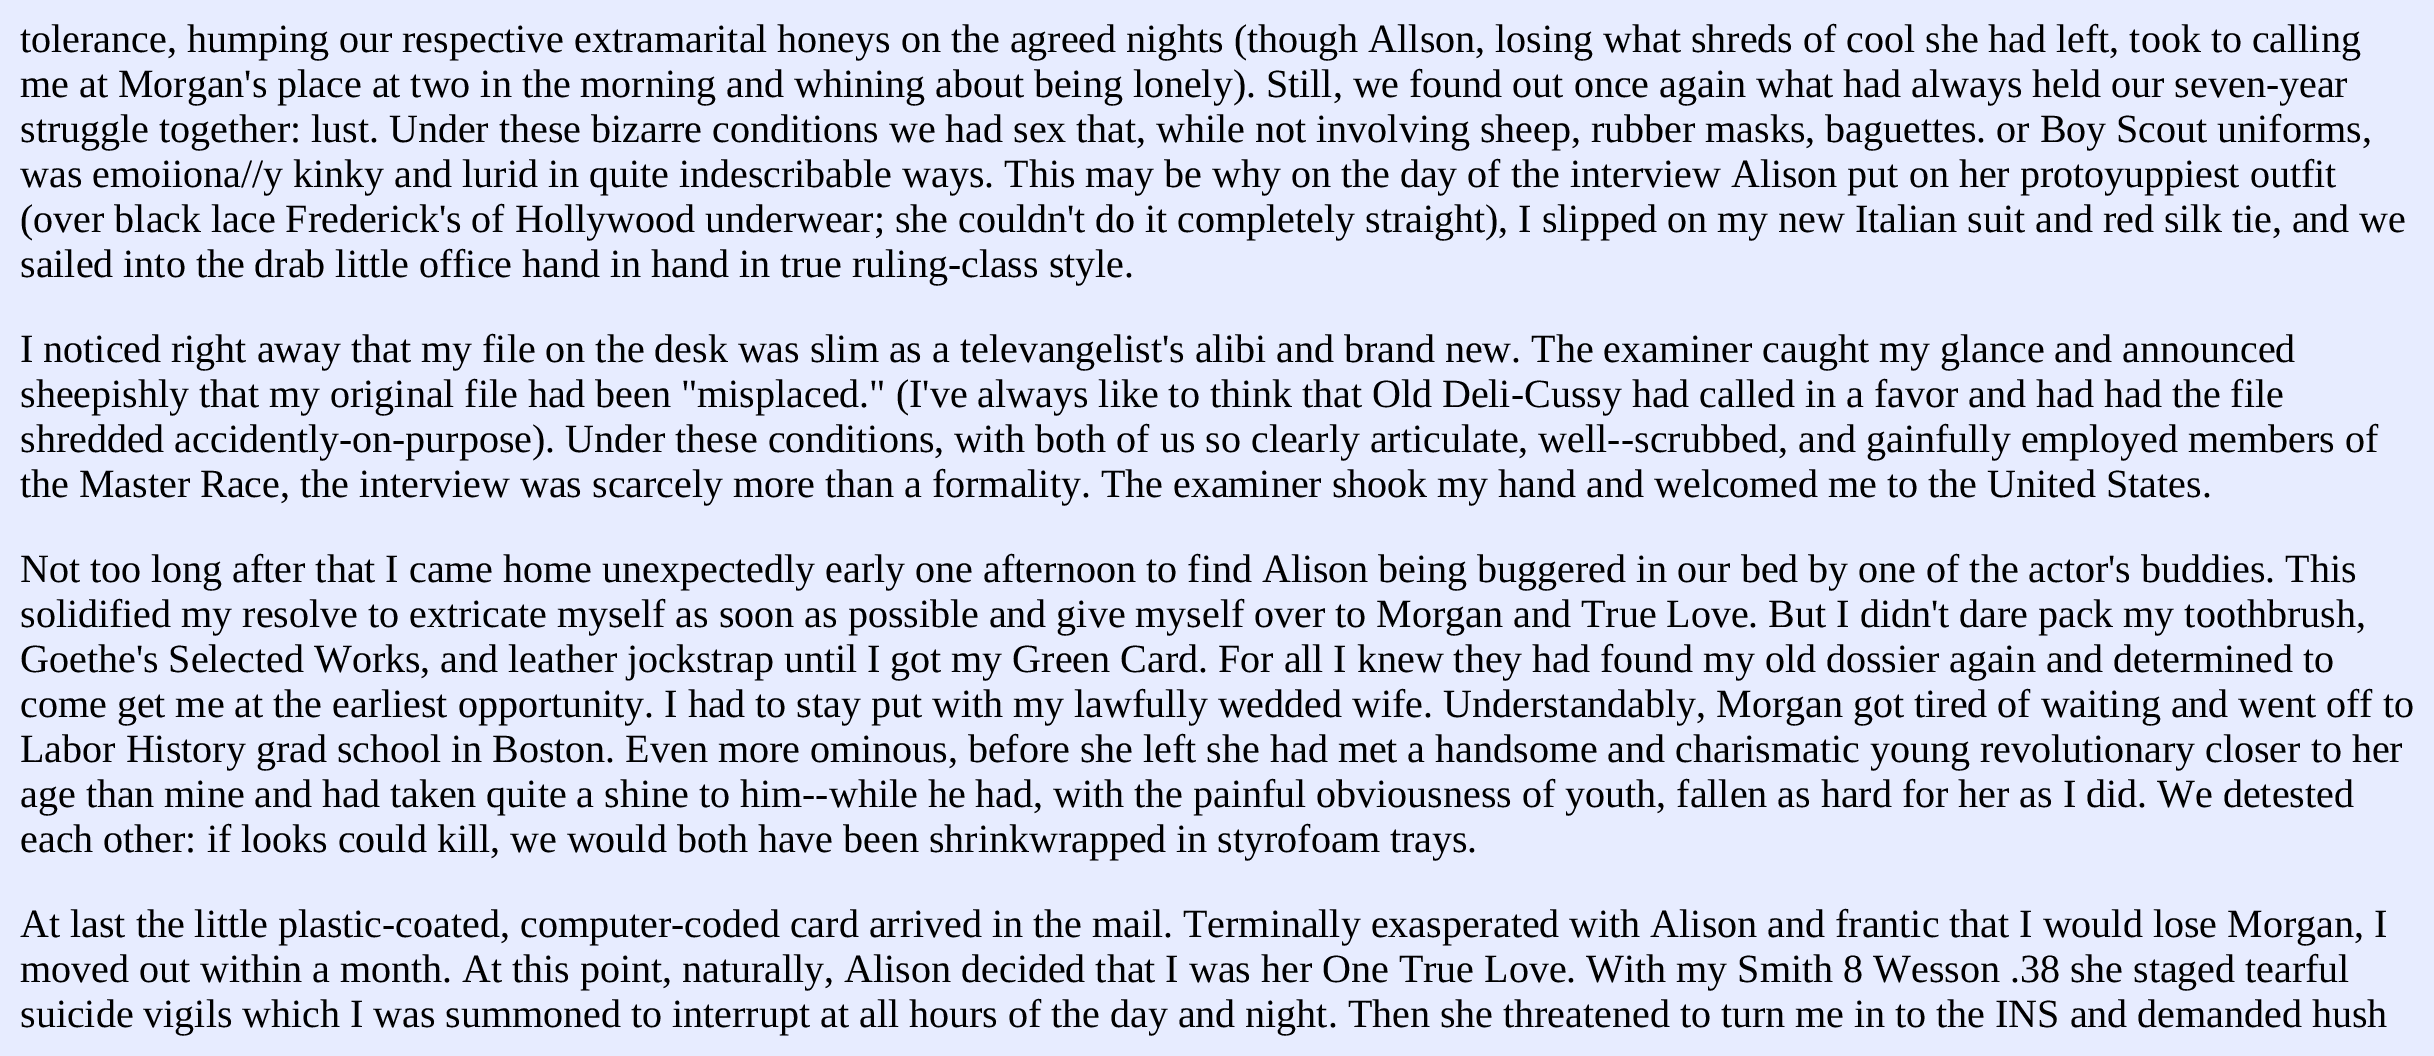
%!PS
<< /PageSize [2434 1056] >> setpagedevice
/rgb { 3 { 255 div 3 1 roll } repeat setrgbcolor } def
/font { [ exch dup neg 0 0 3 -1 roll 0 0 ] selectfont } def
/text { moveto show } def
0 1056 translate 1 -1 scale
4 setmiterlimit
231 236 255 rgb
0 0 2434 1056 rectfill
/LiberationSerif-Regular 40 font
0 0 0 rgb
(tolerance, humping our respective extramarital honeys on the agreed nights \(though Allson, losing what shreds of cool she had left, took to calling) 20 52 text
(me at Morgan's place at two in the morning and whining about being lonely\). Still, we found out once again what had always held our seven-year) 20 97 text
(struggle together: lust. Under these bizarre conditions we had sex that, while not involving sheep, rubber masks, baguettes. or Boy Scout uniforms,) 20 142 text
(was emoiiona//y kinky and lurid in quite indescribable ways. This may be why on the day of the interview Alison put on her protoyuppiest outfit) 20 187 text
(\(over black lace Frederick's of Hollywood underwear; she couldn't do it completely straight\), I slipped on my new Italian suit and red silk tie, and we) 20 232 text
(sailed into the drab little office hand in hand in true ruling-class style.) 20 277 text
(I noticed right away that my file on the desk was slim as a televangelist's alibi and brand new. The examiner caught my glance and announced) 20 362 text
(sheepishly that my original file had been "misplaced." \(I've always like to think that Old Deli-Cussy had called in a favor and had had the file) 20 407 text
(shredded accidently-on-purpose\). Under these conditions, with both of us so clearly articulate, well--scrubbed, and gainfully employed members of) 20 452 text
(the Master Race, the interview was scarcely more than a formality. The examiner shook my hand and welcomed me to the United States.) 20 497 text
(Not too long after that I came home unexpectedly early one afternoon to find Alison being buggered in our bed by one of the actor's buddies. This) 20 582 text
(solidified my resolve to extricate myself as soon as possible and give myself over to Morgan and True Love. But I didn't dare pack my toothbrush,) 20 627 text
(Goethe's Selected Works, and leather jockstrap until I got my Green Card. For all I knew they had found my old dossier again and determined to) 20 672 text
(come get me at the earliest opportunity. I had to stay put with my lawfully wedded wife. Understandably, Morgan got tired of waiting and went off to) 20 717 text
(Labor History grad school in Boston. Even more ominous, before she left she had met a handsome and charismatic young revolutionary closer to her) 20 762 text
(age than mine and had taken quite a shine to him--while he had, with the painful obviousness of youth, fallen as hard for her as I did. We detested) 20 807 text
(each other: if looks could kill, we would both have been shrinkwrapped in styrofoam trays.) 20 852 text
(At last the little plastic-coated, computer-coded card arrived in the mail. Terminally exasperated with Alison and frantic that I would lose Morgan, I) 20 937 text
(moved out within a month. At this point, naturally, Alison decided that I was her One True Love. With my Smith 8 Wesson .38 she staged tearful) 20 982 text
(suicide vigils which I was summoned to interrupt at all hours of the day and night. Then she threatened to turn me in to the INS and demanded hush) 20 1027 text
showpage
